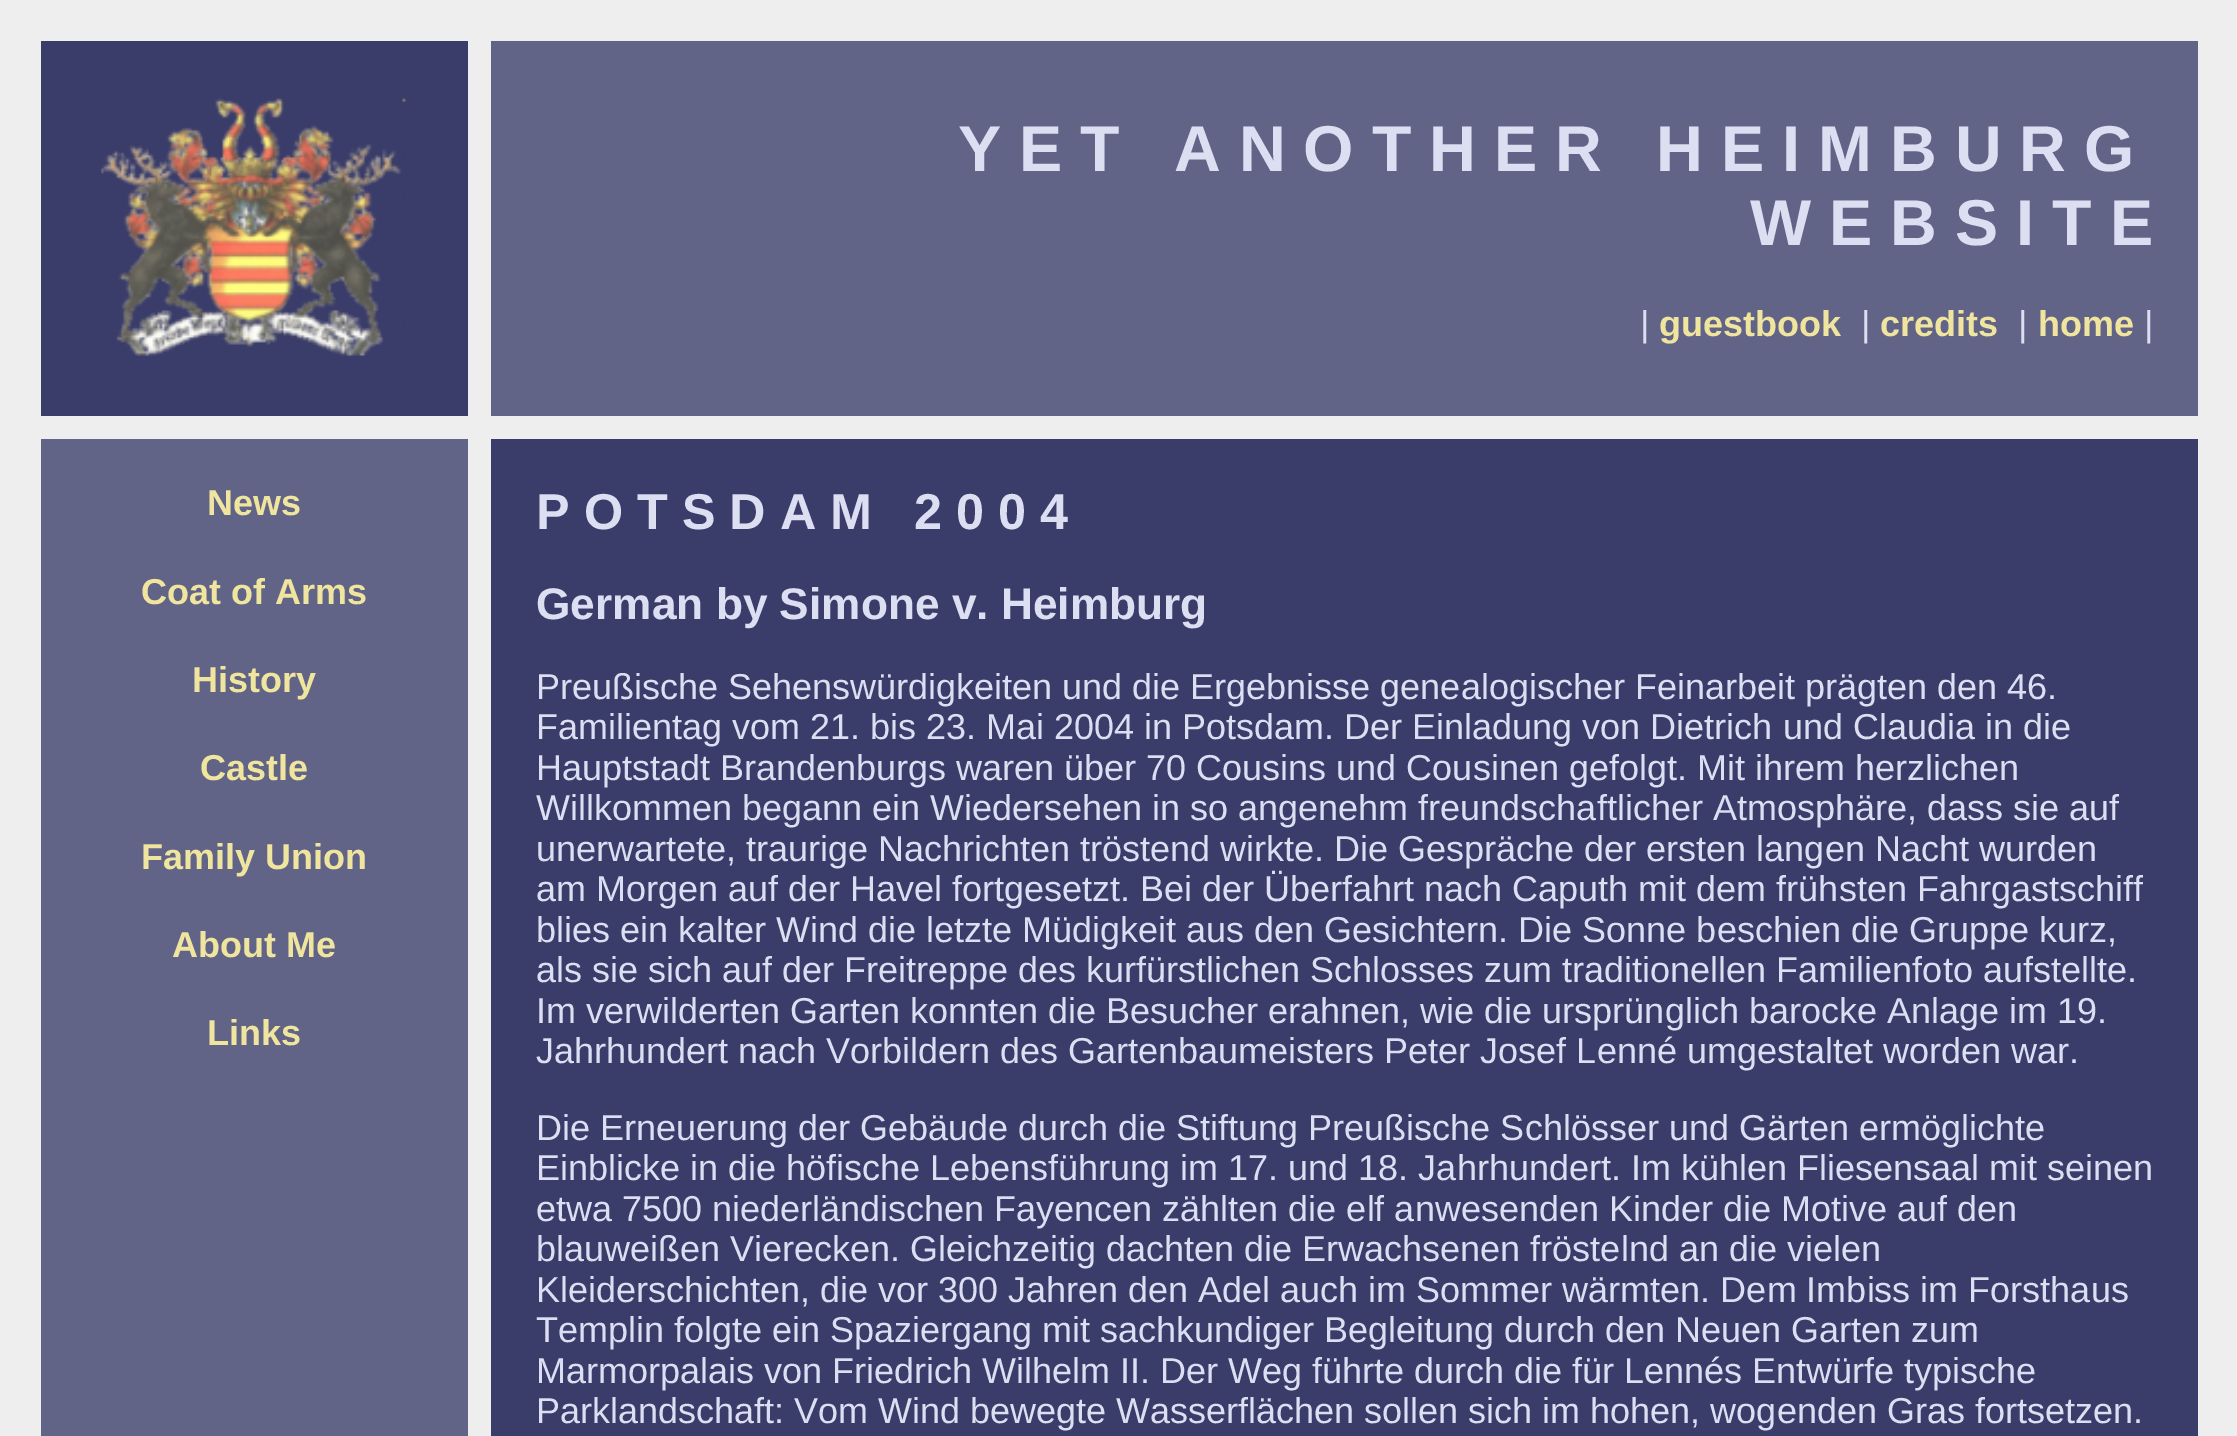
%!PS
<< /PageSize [2237 1436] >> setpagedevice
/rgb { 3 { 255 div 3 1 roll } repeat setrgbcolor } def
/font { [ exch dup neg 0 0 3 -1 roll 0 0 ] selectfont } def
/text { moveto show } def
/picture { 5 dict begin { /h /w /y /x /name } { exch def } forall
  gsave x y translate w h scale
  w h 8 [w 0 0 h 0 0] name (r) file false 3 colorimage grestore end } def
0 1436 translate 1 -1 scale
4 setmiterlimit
238 238 238 rgb
0 0 2237 1436 rectfill
58 60 105 rgb
41 41 427 375 rectfill
(img_01.rgb) 100 98 306 259 picture
97 99 135 rgb
491 41 1707 375 rectfill
41 439 427 997 rectfill
58 60 105 rgb
491 439 1707 997 rectfill
/LiberationSans-Bold 64.75 font
220 222 242 rgb
(Y E T   A N O T H E R) 958 171 text
(H E I M B U R G) 1656 171 text
(W E B S I T E) 1750 245 text
/LiberationSans-Regular 36 font
(|) 1640 336 text
/LiberationSans-Bold 36 font
240 229 158 rgb
(guestbook) 1659 336 text
/LiberationSans-Regular 36 font
220 222 242 rgb
(|) 1861 336 text
/LiberationSans-Bold 36 font
240 229 158 rgb
(credits) 1880 336 text
/LiberationSans-Regular 36 font
220 222 242 rgb
(|) 2018 336 text
/LiberationSans-Bold 36 font
240 229 158 rgb
(home) 2038 336 text
/LiberationSans-Regular 36 font
220 222 242 rgb
(|) 2144 336 text
/LiberationSans-Bold 36 font
240 229 158 rgb
(News) 207 515 text
(Coat of Arms) 141 604 text
(History) 192 692 text
(Castle) 200 780 text
(Family Union) 141 869 text
(About Me) 172 957 text
(Links) 207 1045 text
/LiberationSans-Bold 50.4 font
220 222 242 rgb
(P O T S D A M   2 0 0 4) 536 529 text
/LiberationSans-Bold 44.25 font
(German by Simone v. Heimburg) 536 619 text
/LiberationSans-Regular 36 font
(Preußische Sehenswürdigkeiten und die Ergebnisse genealogischer Feinarbeit prägten den 46.) 536 699 text
(Familientag vom 21. bis 23. Mai 2004 in Potsdam. Der Einladung von Dietrich und Claudia in die) 536 739 text
(Hauptstadt Brandenburgs waren über 70 Cousins und Cousinen gefolgt. Mit ihrem herzlichen) 536 780 text
(Willkommen begann ein Wiedersehen in so angenehm freundschaftlicher Atmosphäre, dass sie auf) 536 820 text
(unerwartete, traurige Nachrichten tröstend wirkte. Die Gespräche der ersten langen Nacht wurden) 536 861 text
(am Morgen auf der Havel fortgesetzt. Bei der Überfahrt nach Caputh mit dem frühsten Fahrgastschiff) 536 901 text
(blies ein kalter Wind die letzte Müdigkeit aus den Gesichtern. Die Sonne beschien die Gruppe kurz,) 536 942 text
(als sie sich auf der Freitreppe des kurfürstlichen Schlosses zum traditionellen Familienfoto aufstellte.) 536 982 text
(Im verwilderten Garten konnten die Besucher erahnen, wie die ursprünglich barocke Anlage im 19.) 536 1023 text
(Jahrhundert nach Vorbildern des Gartenbaumeisters Peter Josef Lenné umgestaltet worden war.) 536 1063 text
(Die Erneuerung der Gebäude durch die Stiftung Preußische Schlösser und Gärten ermöglichte) 536 1140 text
(Einblicke in die höfische Lebensführung im 17. und 18. Jahrhundert. Im kühlen Fliesensaal mit seinen) 536 1180 text
(etwa 7500 niederländischen Fayencen zählten die elf anwesenden Kinder die Motive auf den) 536 1221 text
(blauweißen Vierecken. Gleichzeitig dachten die Erwachsenen fröstelnd an die vielen) 536 1261 text
(Kleiderschichten, die vor 300 Jahren den Adel auch im Sommer wärmten. Dem Imbiss im Forsthaus) 536 1302 text
(Templin folgte ein Spaziergang mit sachkundiger Begleitung durch den Neuen Garten zum) 536 1342 text
(Marmorpalais von Friedrich Wilhelm II. Der Weg führte durch die für Lennés Entwürfe typische) 536 1383 text
(Parklandschaft: Vom Wind bewegte Wasserflächen sollen sich im hohen, wogenden Gras fortsetzen.) 536 1423 text
showpage
